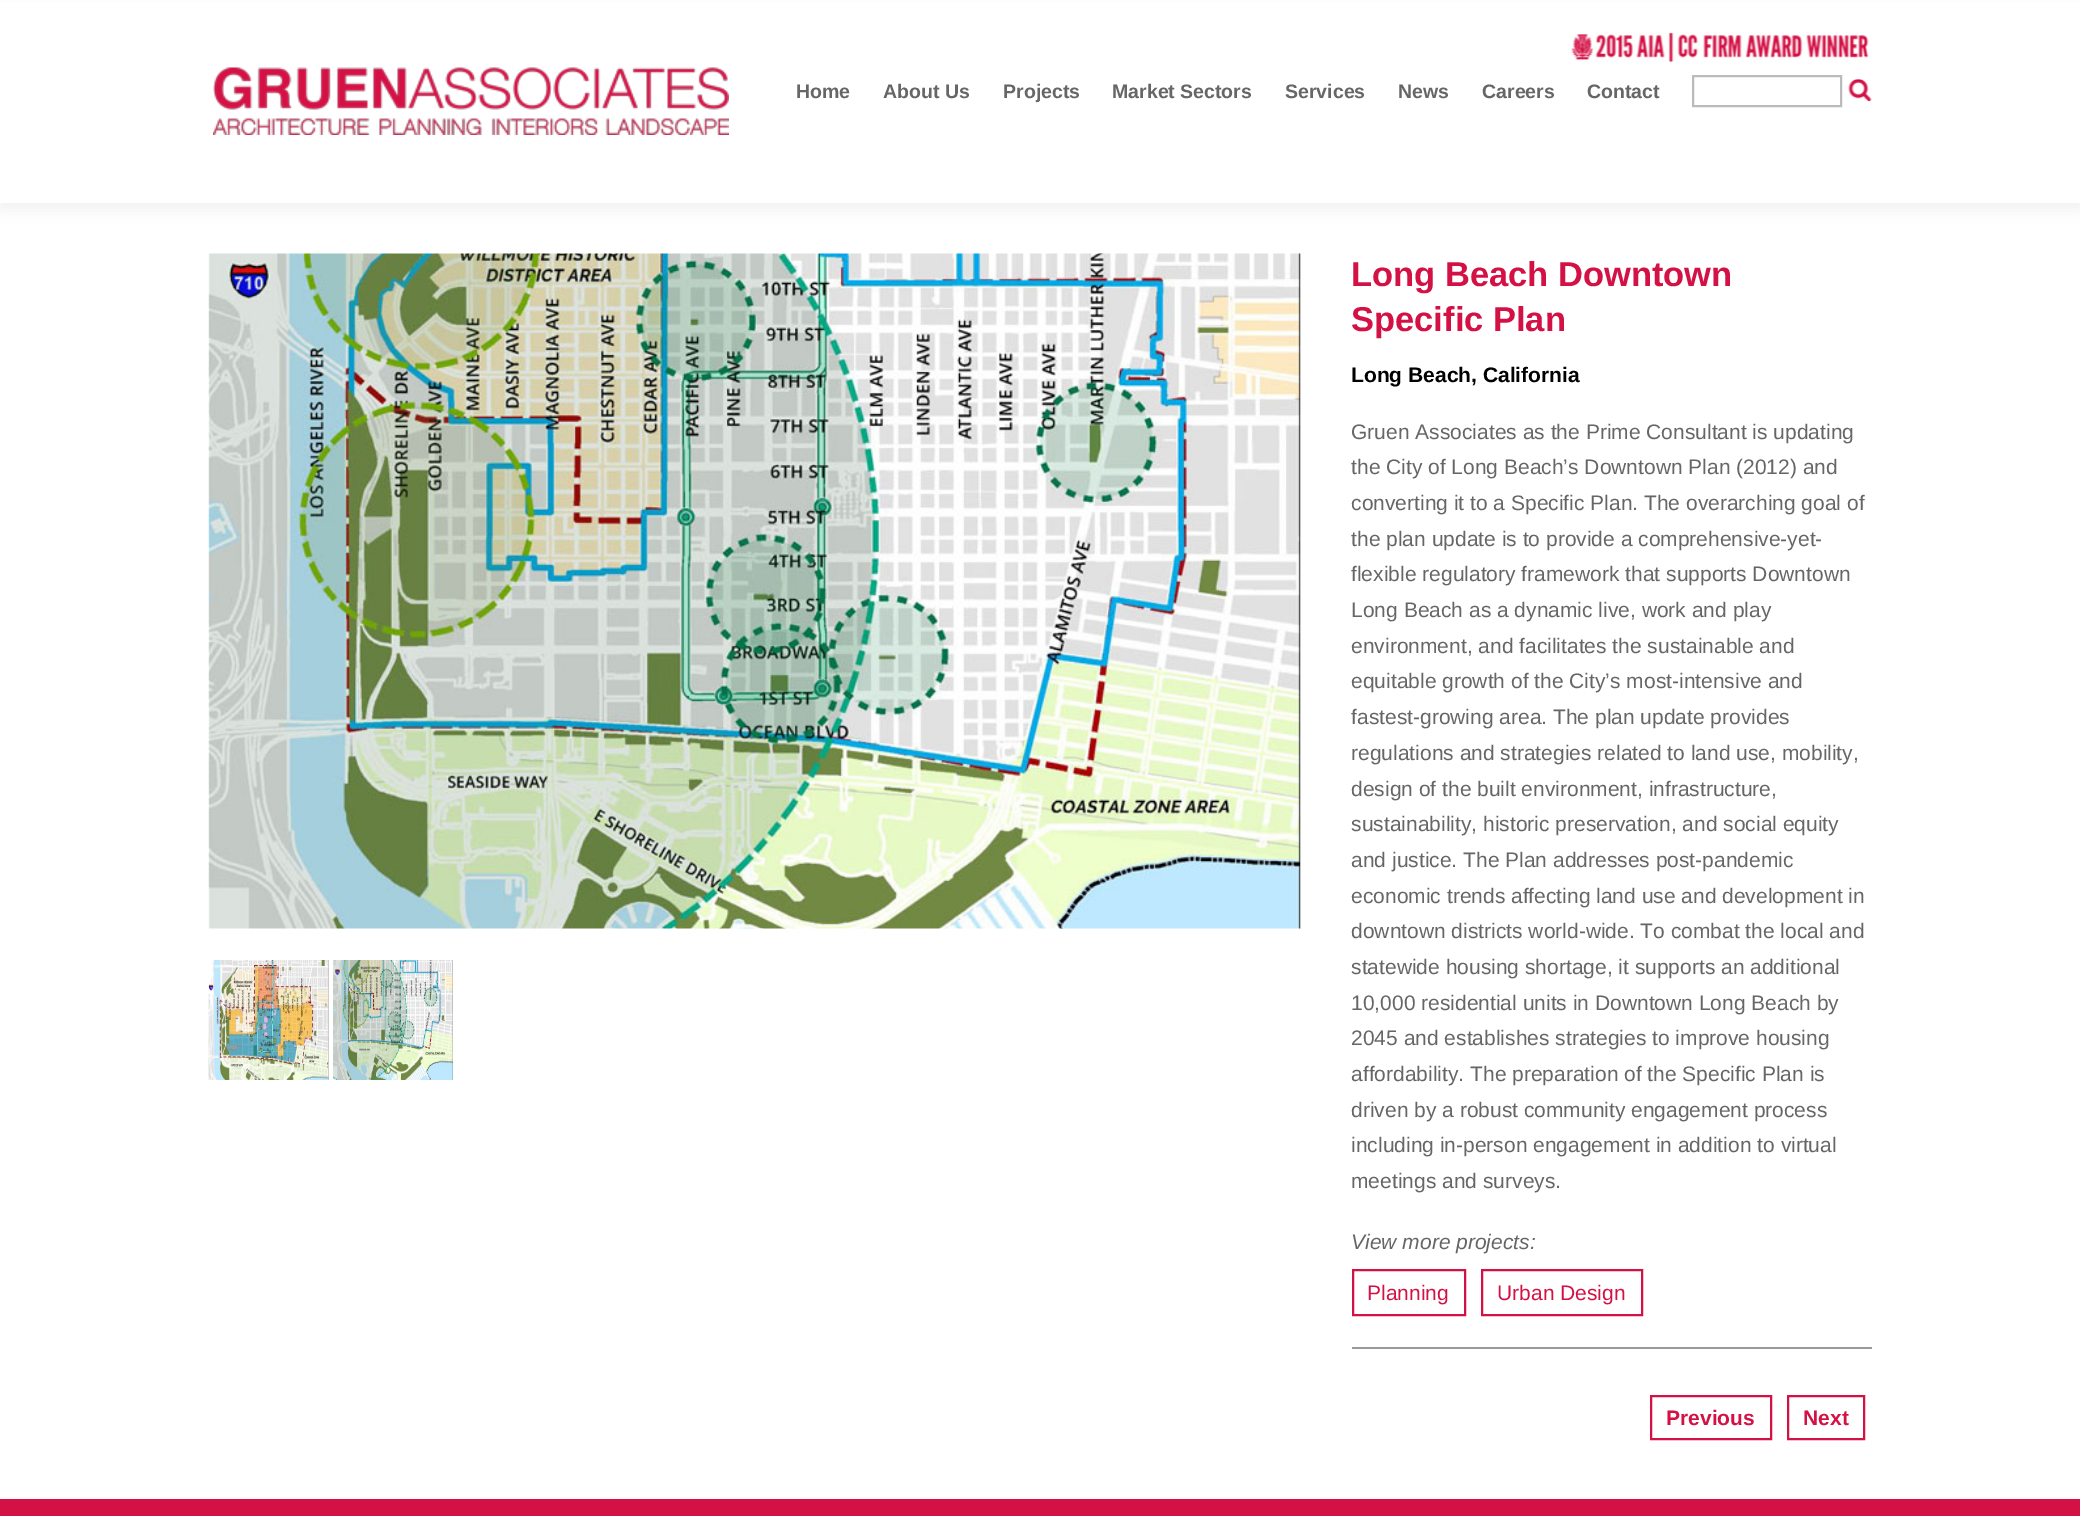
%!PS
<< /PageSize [2080 1516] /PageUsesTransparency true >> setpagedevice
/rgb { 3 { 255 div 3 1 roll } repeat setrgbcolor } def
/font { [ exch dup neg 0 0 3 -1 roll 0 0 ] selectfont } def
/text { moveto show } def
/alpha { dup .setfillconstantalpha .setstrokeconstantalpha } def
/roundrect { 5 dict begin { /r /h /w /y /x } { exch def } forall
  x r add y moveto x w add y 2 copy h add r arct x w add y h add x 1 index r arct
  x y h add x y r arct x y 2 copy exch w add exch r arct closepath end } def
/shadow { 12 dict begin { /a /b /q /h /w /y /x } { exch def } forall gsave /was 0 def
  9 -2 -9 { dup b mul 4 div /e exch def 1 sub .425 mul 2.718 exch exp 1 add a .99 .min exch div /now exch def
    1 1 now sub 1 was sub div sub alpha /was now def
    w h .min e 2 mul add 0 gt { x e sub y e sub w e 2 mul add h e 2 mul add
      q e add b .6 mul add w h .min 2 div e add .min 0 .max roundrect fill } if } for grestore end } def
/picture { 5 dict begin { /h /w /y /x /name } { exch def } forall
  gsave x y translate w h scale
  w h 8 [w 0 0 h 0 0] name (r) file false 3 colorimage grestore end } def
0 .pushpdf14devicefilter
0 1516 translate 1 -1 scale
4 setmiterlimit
255 255 255 rgb
0 0 2080 1516 rectfill
0 0 0 rgb
0 8 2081 202 0 7.5 0.05 shadow
255 255 255 rgb
0 2 2080 201 rectfill
(img_01.rgb) 1571 32 298 30 picture
(img_02.rgb) 213 67 516 68 picture
187 187 187 rgb
2 setlinewidth
1693 76 148 30 rectstroke
(img_03.rgb) 1848 79 24 23 picture
(img_04.rgb) 208 253 1093 676 picture
(img_05.rgb) 208 960 121 120 picture
(img_06.rgb) 333 960 120 120 picture
153 153 153 rgb
1352 1347 520 2 rectfill
211 17 69 rgb
1353 1270 112 45 rectstroke
1482 1270 160 45 rectstroke
1651 1396 120 43 rectstroke
1788 1396 76 43 rectstroke
0 1499 2080 17 rectfill
/LiberationSans-Bold 19.5 font
102 102 102 rgb
(Home) 796 98 text
(About Us) 883 98 text
(Projects) 1003 98 text
(Market Sectors) 1112 98 text
(Services) 1285 98 text
(News) 1398 98 text
(Careers) 1482 98 text
(Contact) 1587 98 text
/LiberationSans-Bold 34.5 font
211 17 69 rgb
(Long Beach Downtown) 1351 286 text
(Specific Plan) 1351 331 text
/LiberationSans-Bold 21 font
0 0 0 rgb
(Long Beach, California) 1351 382 text
/LiberationSans-Regular 21 font
102 102 102 rgb
(Gruen Associates as the Prime Consultant is updating) 1351 439 text
(the City of Long Beach’s Downtown Plan \(2012\) and) 1351 474 text
(converting it to a Specific Plan. The overarching goal of) 1351 510 text
(the plan update is to provide a comprehensive-yet-) 1351 546 text
(flexible regulatory framework that supports Downtown) 1351 581 text
(Long Beach as a dynamic live, work and play) 1351 617 text
(environment, and facilitates the sustainable and) 1351 653 text
(equitable growth of the City’s most-intensive and) 1351 688 text
(fastest-growing area. The plan update provides) 1351 724 text
(regulations and strategies related to land use, mobility,) 1351 760 text
(design of the built environment, infrastructure,) 1351 796 text
(sustainability, historic preservation, and social equity) 1351 831 text
(and justice. The Plan addresses post-pandemic) 1351 867 text
(economic trends affecting land use and development in) 1351 903 text
(downtown districts world-wide. To combat the local and) 1351 938 text
(statewide housing shortage, it supports an additional) 1351 974 text
(10,000 residential units in Downtown Long Beach by) 1351 1010 text
(2045 and establishes strategies to improve housing) 1351 1045 text
(affordability. The preparation of the Specific Plan is) 1351 1081 text
(driven by a robust community engagement process) 1351 1117 text
(including in-person engagement in addition to virtual) 1351 1152 text
(meetings and surveys.) 1351 1188 text
/LiberationSans-Italic 21 font
(View more projects:) 1351 1249 text
/LiberationSans-Regular 21 font
211 17 69 rgb
(Planning) 1367 1300 text
(Urban Design) 1497 1300 text
/LiberationSans-Bold 21 font
(Previous) 1666 1425 text
(Next) 1803 1425 text
.poppdf14devicefilter showpage
